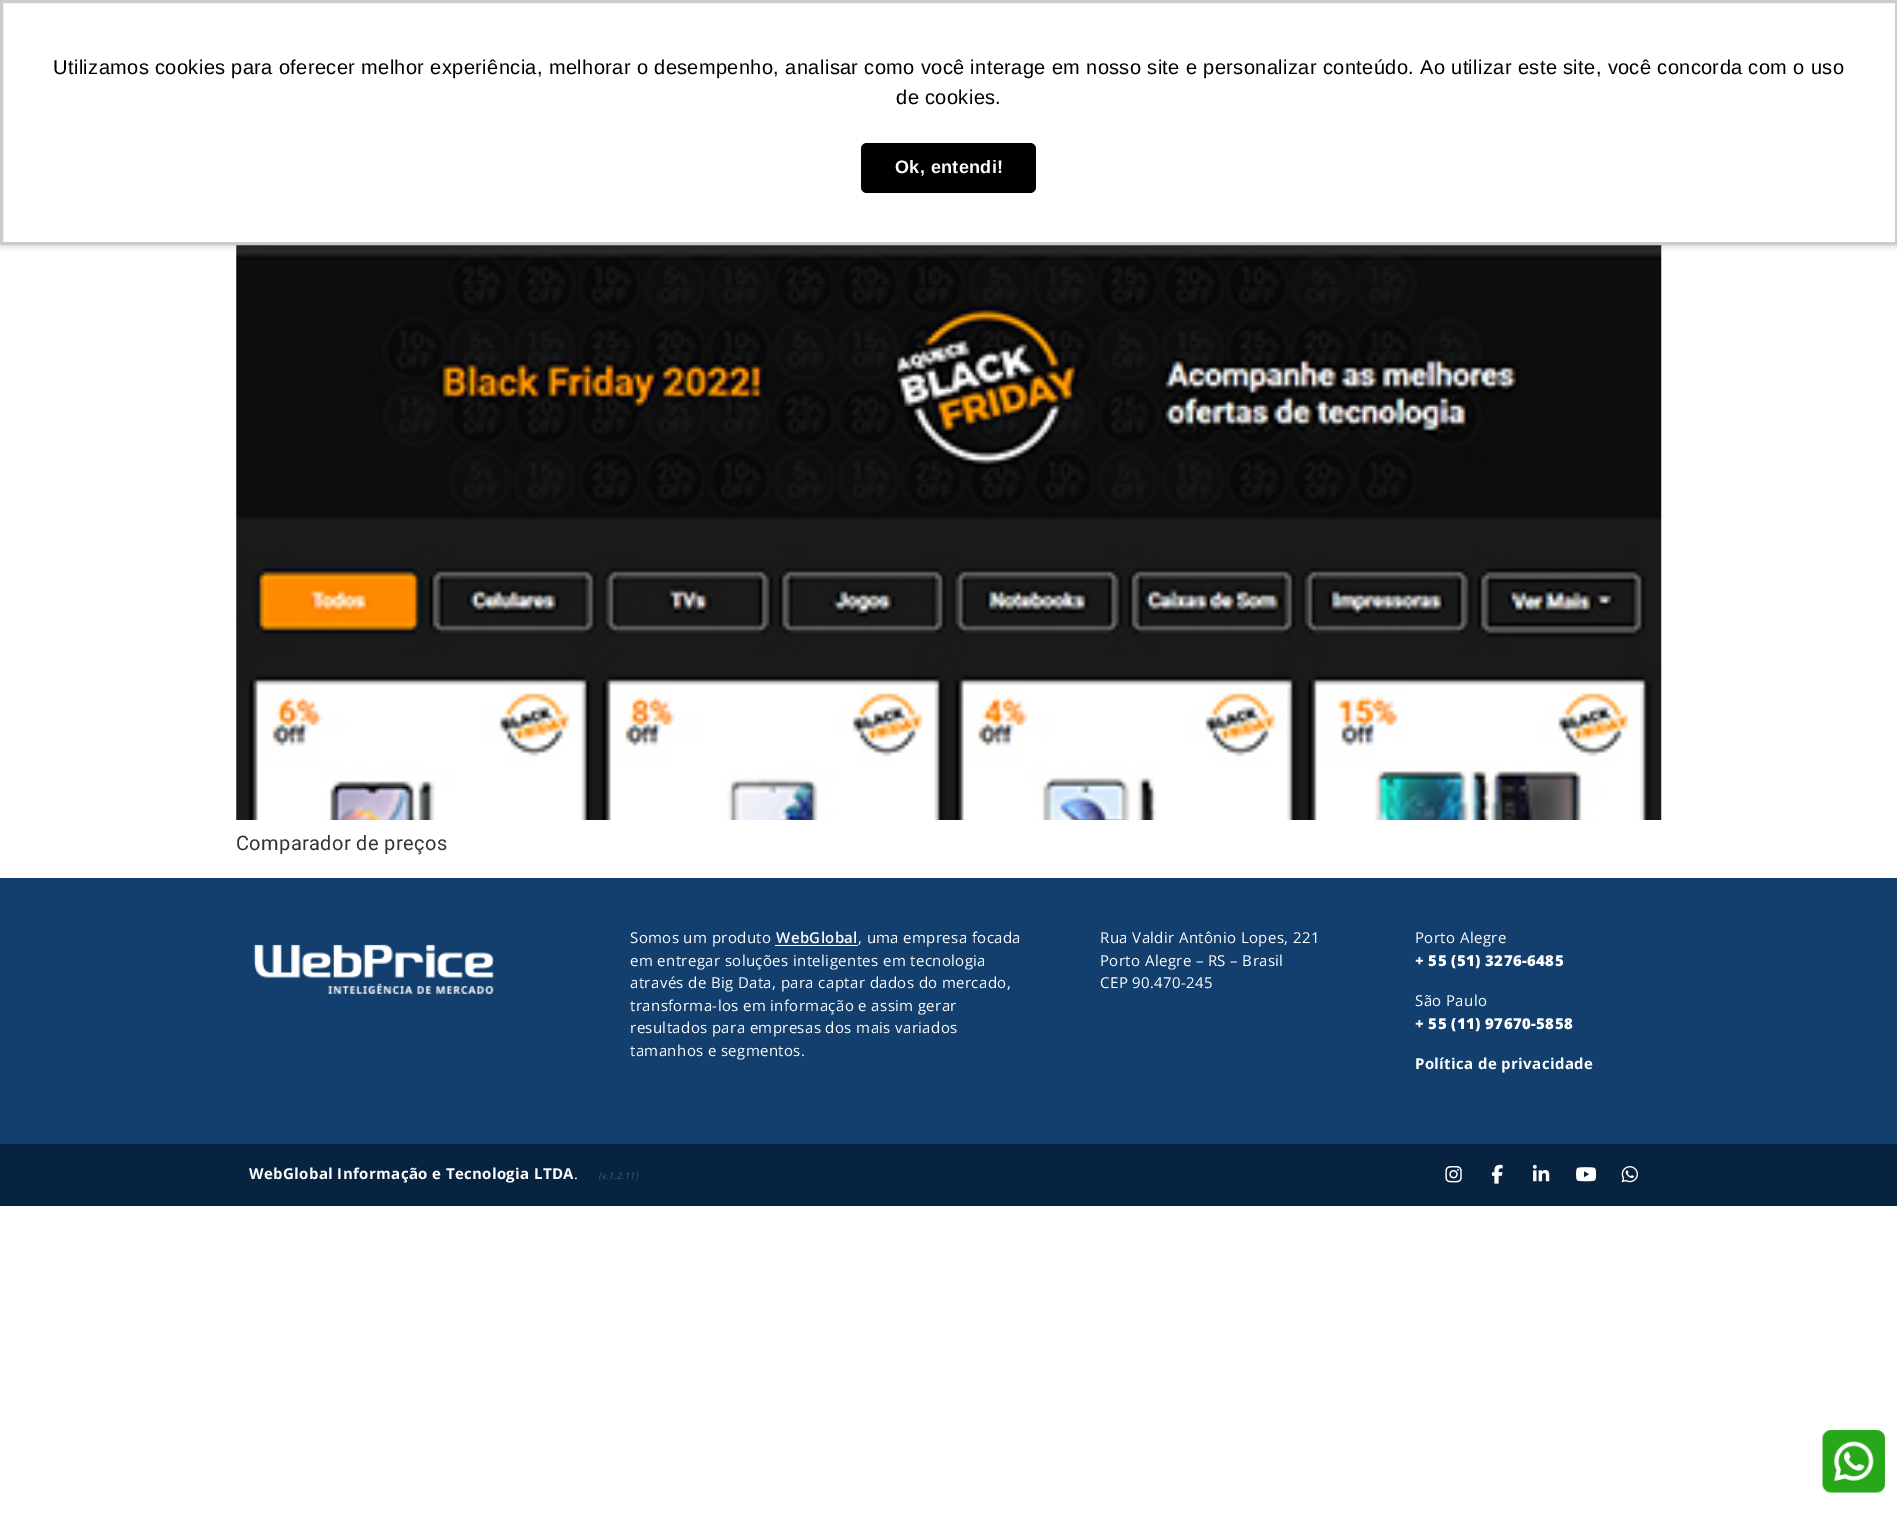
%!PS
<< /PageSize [1897 1513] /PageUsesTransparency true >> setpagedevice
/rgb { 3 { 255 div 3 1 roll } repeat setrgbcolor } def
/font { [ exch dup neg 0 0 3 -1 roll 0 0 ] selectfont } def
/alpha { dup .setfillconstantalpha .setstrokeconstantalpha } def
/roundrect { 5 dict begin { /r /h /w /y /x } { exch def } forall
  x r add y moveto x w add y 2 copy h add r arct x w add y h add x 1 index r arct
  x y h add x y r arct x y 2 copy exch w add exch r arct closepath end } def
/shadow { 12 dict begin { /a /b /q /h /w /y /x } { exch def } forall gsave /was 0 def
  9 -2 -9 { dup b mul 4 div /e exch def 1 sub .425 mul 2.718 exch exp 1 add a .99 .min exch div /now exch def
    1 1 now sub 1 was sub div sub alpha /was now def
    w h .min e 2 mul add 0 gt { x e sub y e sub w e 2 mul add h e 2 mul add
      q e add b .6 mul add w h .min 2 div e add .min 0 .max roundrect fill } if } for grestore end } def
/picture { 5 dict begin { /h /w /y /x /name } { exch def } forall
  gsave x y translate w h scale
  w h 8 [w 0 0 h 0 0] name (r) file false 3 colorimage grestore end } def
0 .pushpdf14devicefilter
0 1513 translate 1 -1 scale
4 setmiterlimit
255 255 255 rgb
0 0 1897 1513 rectfill
(img_01.rgb) 236 245 1426 575 picture
0 0 0 rgb
1 3 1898 245 0 2.5 0.1 shadow
255 255 255 rgb
1.5 1.5 moveto 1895 0 rlineto 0 242 rlineto -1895 0 rlineto closepath gsave fill grestore
204 204 204 rgb
3 setlinewidth
stroke
0 0 0 rgb
861 143 175 50 6 roundrect fill
18 63 109 rgb
0 878 1897 266 rectfill
(img_02.rgb) 253 944 241 51 picture
255 255 255 rgb
775 945 83 1 rectfill
7 35 63 rgb
0 1144 1897 62 rectfill
(img_03.rgb) 1445 1166 17 17 picture
(img_04.rgb) 1491 1164 12 20 picture
(img_05.rgb) 1532 1164 18 18 picture
(img_06.rgb) 1576 1167 21 15 picture
(img_07.rgb) 1621 1166 17 17 picture
(img_08.rgb) 1822 1430 63 63 picture
/LiberationSans-Regular 20 font
0 0 0 rgb
53 74 moveto 0.38 0 (Utilizamos cookies para oferecer melhor experiência, melhorar o desempenho, analisar como você interage em nosso site e personalizar conteúdo. Ao utilizar este site, você concorda com o uso) ashow
896 104 moveto 0.38 0 (de cookies.) ashow
/LiberationSans-Bold 18 font
255 255 255 rgb
895 173 moveto 0.38 0 (Ok, entendi!) ashow
/Roboto-Regular 20 font
51 51 51 rgb
236 850 moveto 0.38 0 (Comparador de preços) ashow
/OpenSans-Regular 15 font
255 255 255 rgb
630 943 moveto 0.38 0 (Somos um produto) ashow
/OpenSans-SemiBold 15 font
776 943 moveto 0.38 0 (WebGlobal) ashow
/OpenSans-Regular 15 font
858 943 moveto 0.38 0 (, uma empresa focada) ashow
630 966 moveto 0.38 0 (em entregar soluções inteligentes em tecnologia) ashow
630 988 moveto 0.38 0 (através de Big Data, para captar dados do mercado,) ashow
630 1011 moveto 0.38 0 (transforma-los em informação e assim gerar) ashow
630 1033 moveto 0.38 0 (resultados para empresas dos mais variados) ashow
630 1056 moveto 0.38 0 (tamanhos e segmentos.) ashow
1100 943 moveto 0.38 0 (Rua Valdir Antônio Lopes, 221) ashow
1100 966 moveto 0.38 0 (Porto Alegre – RS – Brasil) ashow
1100 988 moveto 0.38 0 (CEP 90.470-245) ashow
1415 943 moveto 0.38 0 (Porto Alegre) ashow
/OpenSans-ExtraBold 15 font
1415 966 moveto 0.38 0 (+ 55 \(51\) 3276-6485) ashow
/OpenSans-Regular 15 font
1415 1006 moveto 0.38 0 (São Paulo) ashow
/OpenSans-ExtraBold 15 font
1415 1029 moveto 0.38 0 (+ 55 \(11\) 97670-5858) ashow
/OpenSans-Bold 15 font
1415 1069 moveto 0.38 0 (Política de privacidade) ashow
249 1179 moveto 0.38 0 (WebGlobal Informação e Tecnologia LTDA) ashow
/OpenSans-Regular 15 font
574 1179 moveto 0.38 0 (.) ashow
/OpenSans-Italic 9 font
69 90 111 rgb
599 1179 moveto 0.38 0 (\(v.1.2.11\)) ashow
.poppdf14devicefilter showpage
